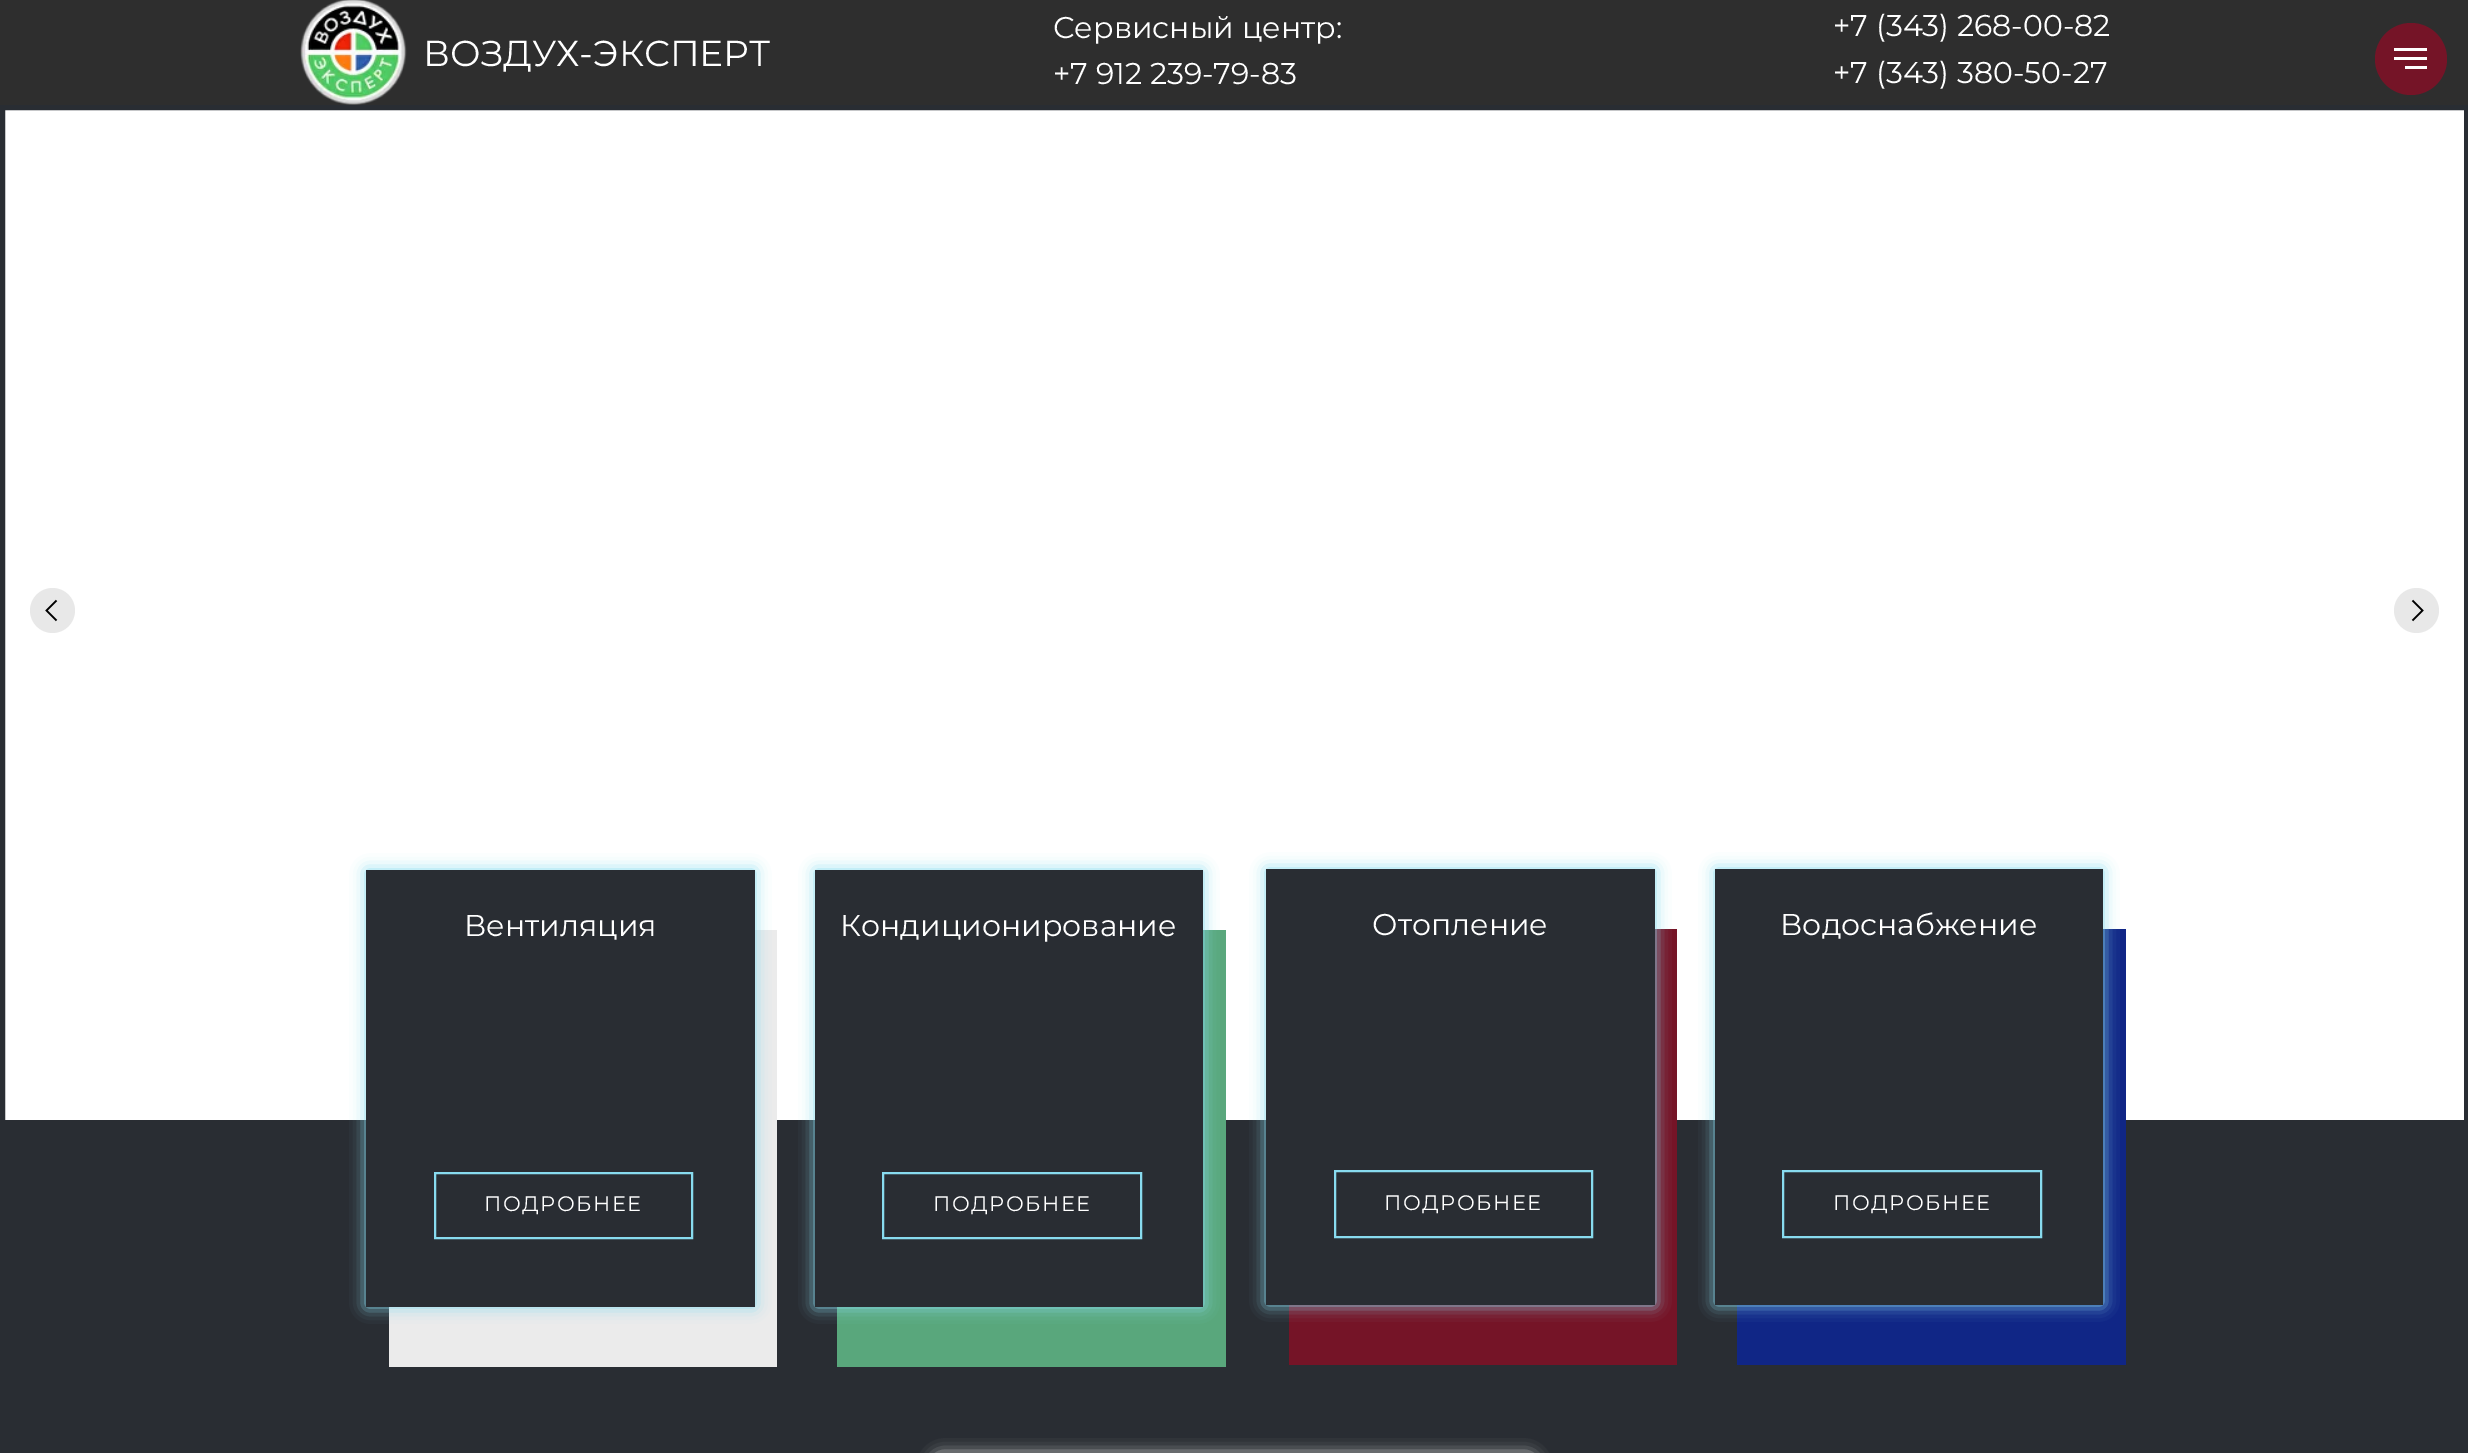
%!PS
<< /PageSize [2468 1453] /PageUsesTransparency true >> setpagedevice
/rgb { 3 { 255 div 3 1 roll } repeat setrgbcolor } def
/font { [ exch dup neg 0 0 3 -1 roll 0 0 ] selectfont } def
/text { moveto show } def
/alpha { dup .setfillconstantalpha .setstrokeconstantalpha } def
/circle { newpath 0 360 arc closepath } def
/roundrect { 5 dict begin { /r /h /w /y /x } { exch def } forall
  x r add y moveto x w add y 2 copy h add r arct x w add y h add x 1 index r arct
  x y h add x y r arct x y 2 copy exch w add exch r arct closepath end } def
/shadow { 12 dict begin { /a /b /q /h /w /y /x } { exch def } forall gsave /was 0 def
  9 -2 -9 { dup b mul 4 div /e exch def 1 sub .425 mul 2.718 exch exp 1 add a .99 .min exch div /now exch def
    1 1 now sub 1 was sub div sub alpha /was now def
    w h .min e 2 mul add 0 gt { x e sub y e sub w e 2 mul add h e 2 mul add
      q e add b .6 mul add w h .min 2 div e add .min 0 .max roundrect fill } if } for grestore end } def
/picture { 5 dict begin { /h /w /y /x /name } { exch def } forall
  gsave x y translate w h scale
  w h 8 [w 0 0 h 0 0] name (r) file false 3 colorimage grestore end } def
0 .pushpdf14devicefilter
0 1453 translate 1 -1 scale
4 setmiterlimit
255 255 255 rgb
0 0 2468 1453 rectfill
46 46 46 rgb
0 0 2468 105 rectfill
(img_01.rgb) 300 0 107 105 picture
117 20 39 rgb
2411 59 36 circle fill
255 255 255 rgb
2394 48 33 3 rectfill
2394 57 33 3 rectfill
2405 66 22 3 rectfill
41 45 51 rgb
5 setlinewidth
2.5 107.5 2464 1015 rectstroke
232 232 232 rgb
52.5 610.5 22.5 circle fill
0 0 0 rgb
1.5 setlinewidth
56.5 600.5 moveto -10 10 rlineto 10 10 rlineto stroke
232 232 232 rgb
2416.5 610.5 22.5 circle fill
0 0 0 rgb
2412.5 620.5 moveto 10 -10 rlineto -10 -10 rlineto stroke
41 45 51 rgb
0 1125 2468 328 rectfill
235 235 235 rgb
389 930 388 437 rectfill
136 219 239 rgb
366 870 389 437 0 7.5 1 shadow
41 45 51 rgb
366 870 389 437 rectfill
89 167 124 rgb
837 930 389 437 rectfill
136 219 239 rgb
815 870 388 437 0 7.5 1 shadow
41 45 51 rgb
815 870 388 437 rectfill
117 20 39 rgb
1289 929 388 436 rectfill
136 219 239 rgb
1266 869 389 436 0 7.5 1 shadow
41 45 51 rgb
1266 869 389 436 rectfill
16 38 134 rgb
1737 929 389 436 rectfill
136 219 239 rgb
1715 869 388 436 0 7.5 1 shadow
41 45 51 rgb
1715 869 388 436 rectfill
136 219 239 rgb
2 setlinewidth
435 1173 257 65 rectstroke
883 1173 258 65 rectstroke
1335 1171 257 66 rectstroke
1783 1171 258 66 rectstroke
255 255 255 rgb
933 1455 603 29 8 7.5 1 shadow
/Montserrat-Regular 36 font
(ВОЗДУХ-ЭКСПЕРТ) 423 66 text
/Montserrat-Regular 30 font
(Сервисный центр:) 1053 38 text
(+7 912 239-79-83) 1053 84 text
(+7 \(343\) 268-00-82) 1833 36 text
(+7 \(343\) 380-50-27) 1833 83 text
(Вентиляция) 464 936 text
(Кондиционирование) 840 936 text
(Отопление) 1372 935 text
(Водоснабжение) 1780 935 text
/Montserrat-Regular 21 font
484 1211 moveto 1.5 0 (ПОДРОБНЕЕ) ashow
933 1211 moveto 1.5 0 (ПОДРОБНЕЕ) ashow
1384 1210 moveto 1.5 0 (ПОДРОБНЕЕ) ashow
1833 1210 moveto 1.5 0 (ПОДРОБНЕЕ) ashow
.poppdf14devicefilter showpage
